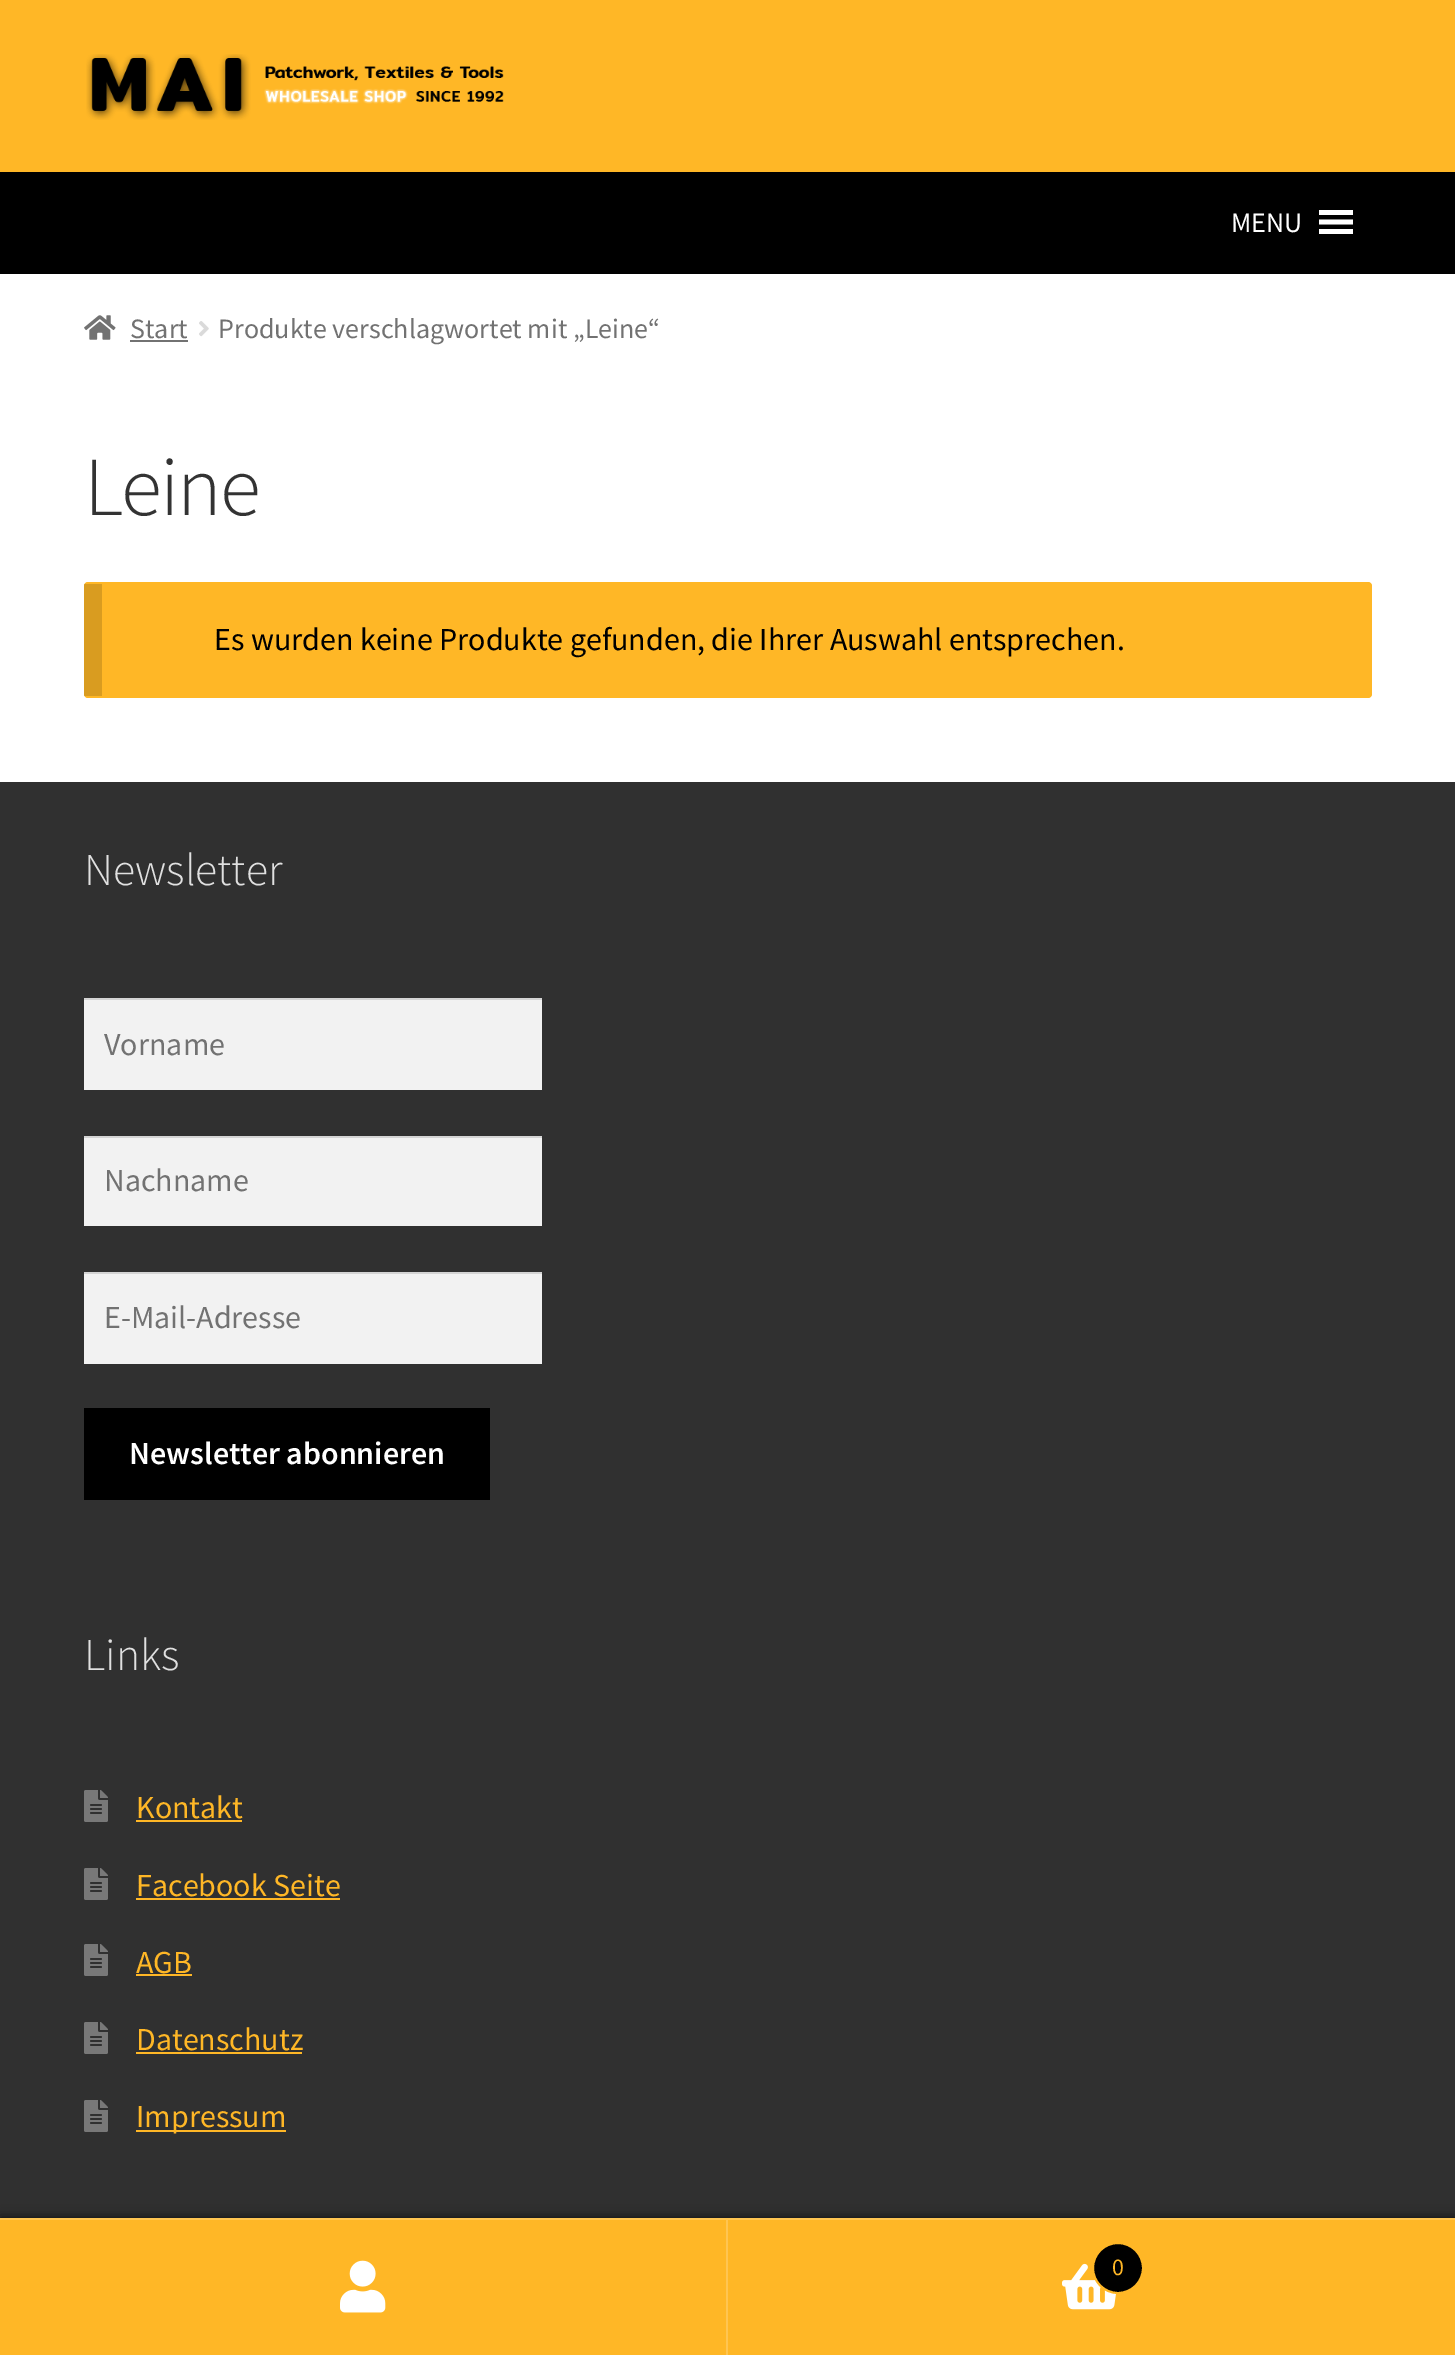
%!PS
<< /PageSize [1455 2355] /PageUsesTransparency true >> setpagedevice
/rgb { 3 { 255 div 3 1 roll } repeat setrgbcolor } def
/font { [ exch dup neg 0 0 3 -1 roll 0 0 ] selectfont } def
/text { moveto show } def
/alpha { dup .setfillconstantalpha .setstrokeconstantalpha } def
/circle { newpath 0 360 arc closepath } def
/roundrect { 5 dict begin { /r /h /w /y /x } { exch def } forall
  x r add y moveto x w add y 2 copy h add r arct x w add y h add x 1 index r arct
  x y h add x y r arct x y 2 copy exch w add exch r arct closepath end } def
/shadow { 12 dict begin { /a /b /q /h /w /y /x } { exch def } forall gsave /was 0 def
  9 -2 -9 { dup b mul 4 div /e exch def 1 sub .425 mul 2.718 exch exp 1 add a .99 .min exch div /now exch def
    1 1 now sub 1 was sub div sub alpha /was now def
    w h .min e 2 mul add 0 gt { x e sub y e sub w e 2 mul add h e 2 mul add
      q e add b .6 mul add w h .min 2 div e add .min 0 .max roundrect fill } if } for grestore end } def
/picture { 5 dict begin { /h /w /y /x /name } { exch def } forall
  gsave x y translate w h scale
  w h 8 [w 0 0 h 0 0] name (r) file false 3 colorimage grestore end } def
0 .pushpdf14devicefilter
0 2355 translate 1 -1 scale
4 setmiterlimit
255 255 255 rgb
0 0 1455 2355 rectfill
255 183 38 rgb
0 0 1455 172 rectfill
0 0 0 rgb
0 172 1455 102 rectfill
(img_01.rgb) 86 54 418 66 picture
255 255 255 rgb
1319 234 moveto 34 0 rlineto 0 -5 rlineto -34 0 rlineto closepath 1319 210 moveto 0 5 rlineto 34 0 rlineto 0 -5 rlineto closepath 1319 224.5 moveto 34 0 rlineto 0 -5 rlineto -34 0 rlineto closepath fill
(img_02.rgb) 84 315 32 25 picture
114 114 114 rgb
130 340 58 2 rectfill
(img_03.rgb) 199 321 10 16 picture
255 183 38 rgb
84 582 1288 116 4 roundrect fill
0.15 alpha
0 0 0 rgb
84 584 18 112 rectfill
1 alpha
48 48 48 rgb
0 782 1455 1436 rectfill
242 242 242 rgb
84 1000 458 90 rectfill
212 212 212 rgb
84 998 458 2 rectfill
242 242 242 rgb
84 1138 458 88 rectfill
212 212 212 rgb
84 1136 458 2 rectfill
242 242 242 rgb
84 1274 458 90 rectfill
212 212 212 rgb
84 1272 458 2 rectfill
0 0 0 rgb
84 1408 406 92 rectfill
(img_04.rgb) 84 1790 24 32 picture
255 183 38 rgb
136 1820 106 2 rectfill
(img_04.rgb) 84 1868 24 32 picture
136 1898 204 2 rectfill
(img_04.rgb) 84 1944 24 32 picture
136 1974 56 2 rectfill
(img_04.rgb) 84 2022 24 32 picture
136 2052 166 2 rectfill
(img_04.rgb) 84 2100 24 32 picture
136 2130 150 2 rectfill
0 0 0 rgb
0 2218 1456 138 0 6 0.7 shadow
255 183 38 rgb
0 2220 1455 135 rectfill
255 197 81 rgb
0 2218 1455 2 rectfill
726 2220 2 135 rectfill
(img_05.rgb) 340 2260 46 53 picture
(img_06.rgb) 1062 2263 55 47 picture
0 0 0 rgb
1118 2268 25 circle gsave fill grestore
255 183 38 rgb
2 setlinewidth
stroke
/SourceSansPro-Regular 28 font
255 255 255 rgb
(MENU) 1231 232 text
114 114 114 rgb
(Start) 130 338 text
(Produkte verschlagwortet mit „Leine“) 218 338 text
/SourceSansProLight-Light 84 font
51 51 51 rgb
84 515 moveto -2 0 (Leine) ashow
/SourceSansPro-Regular 32 font
0 0 0 rgb
(Es wurden keine Produkte gefunden, die Ihrer Auswahl entsprechen.) 214 650 text
/SourceSansProLight-Light 45.5 font
224 224 224 rgb
(Newsletter) 84 885 text
/SourceSansPro-Regular 32 font
114 114 114 rgb
(Vorname) 104 1055 text
(Nachname) 104 1191 text
(E-Mail-Adresse) 104 1328 text
/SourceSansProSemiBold-SemiBold 32 font
255 255 255 rgb
(Newsletter abonnieren) 129 1464 text
/SourceSansProLight-Light 45.5 font
224 224 224 rgb
(Links) 84 1670 text
/SourceSansPro-Regular 32 font
255 183 38 rgb
(Kontakt) 136 1818 text
(Facebook Seite) 136 1896 text
(AGB) 136 1973 text
(Datenschutz) 136 2050 text
(Impressum) 136 2127 text
/SourceSansPro-Regular 24 font
(0) 1112 2275 text
.poppdf14devicefilter showpage
